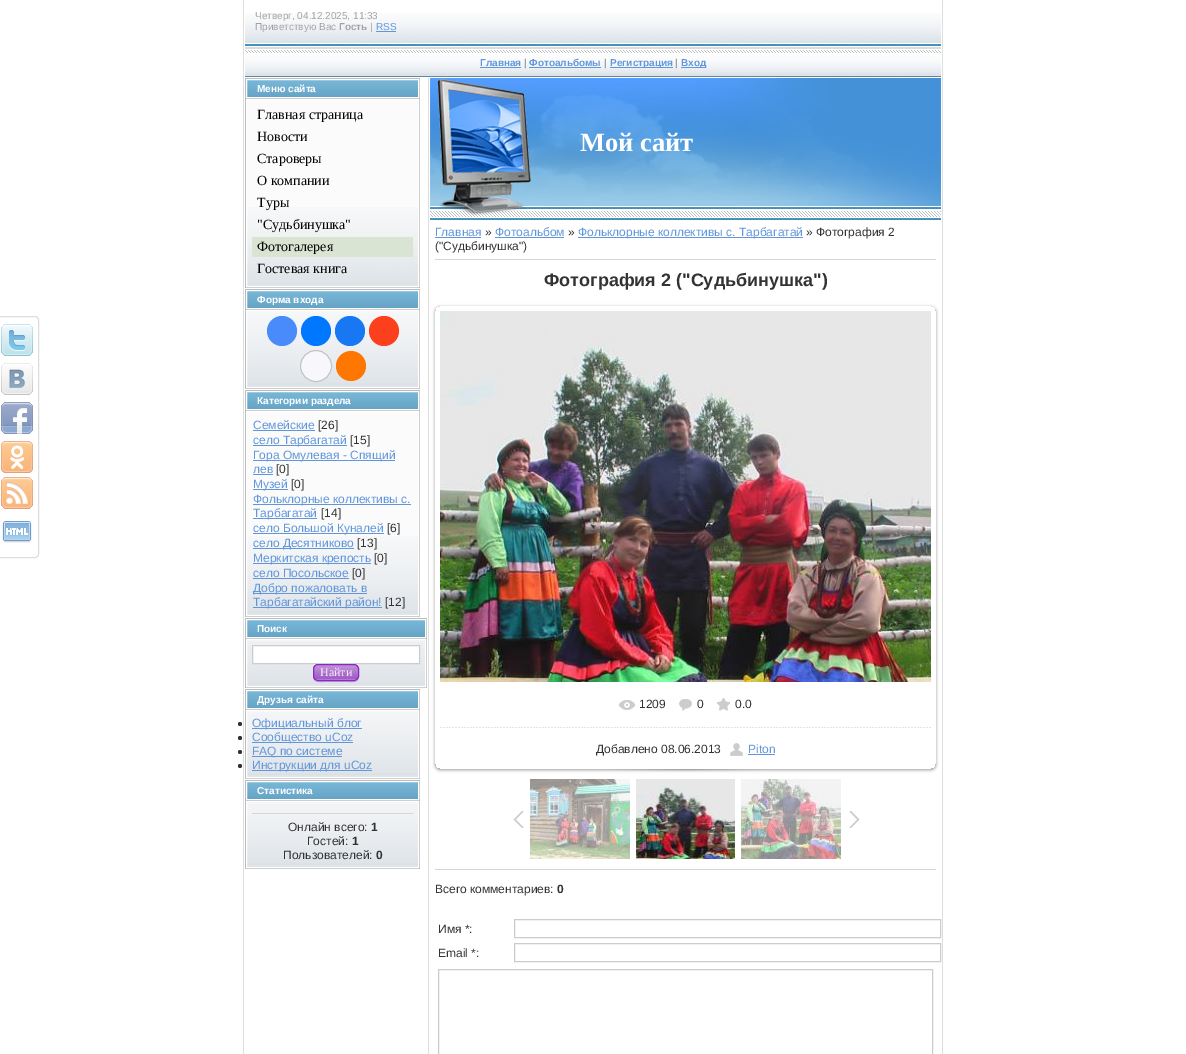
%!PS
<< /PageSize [1186 1054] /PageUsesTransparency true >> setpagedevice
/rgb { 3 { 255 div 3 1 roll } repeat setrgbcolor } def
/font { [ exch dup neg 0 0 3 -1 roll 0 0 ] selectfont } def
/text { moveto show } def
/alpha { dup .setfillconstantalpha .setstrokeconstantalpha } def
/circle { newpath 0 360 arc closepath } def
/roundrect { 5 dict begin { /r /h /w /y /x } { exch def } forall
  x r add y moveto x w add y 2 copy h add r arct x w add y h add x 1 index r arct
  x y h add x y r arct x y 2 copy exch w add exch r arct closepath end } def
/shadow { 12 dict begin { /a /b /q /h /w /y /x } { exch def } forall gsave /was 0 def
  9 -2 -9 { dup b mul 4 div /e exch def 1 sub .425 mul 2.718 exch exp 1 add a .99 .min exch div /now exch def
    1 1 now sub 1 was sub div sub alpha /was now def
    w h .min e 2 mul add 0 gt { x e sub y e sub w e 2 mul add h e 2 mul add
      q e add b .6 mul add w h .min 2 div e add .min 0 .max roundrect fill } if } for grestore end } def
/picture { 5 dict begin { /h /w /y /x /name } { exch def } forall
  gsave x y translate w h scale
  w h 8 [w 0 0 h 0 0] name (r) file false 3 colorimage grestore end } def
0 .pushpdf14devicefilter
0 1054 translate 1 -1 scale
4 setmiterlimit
255 255 255 rgb
0 0 1186 1054 rectfill
222 222 222 rgb
942 0 1 1054 rectfill
243 0 1 1054 rectfill
(img_01.rgb) 245 13 696 33 picture
97 150 218 rgb
376 31 20 1 rectfill
(img_02.rgb) 245 47 696 30 picture
480 67 41 1 rectfill
529 67 72 1 rectfill
610 67 63 1 rectfill
681 67 25 1 rectfill
221 221 221 rgb
-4.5 316.5 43 241 3.5 roundrect stroke
(img_03.rgb) 1 324 32 32 picture
(img_04.rgb) 1 363 32 32 picture
(img_05.rgb) 1 402 32 32 picture
(img_06.rgb) 1 441 32 32 picture
(img_07.rgb) 1 477 32 32 picture
(img_08.rgb) 2 521 30 22 picture
188 188 188 rgb
245 78 175 210 rectfill
(img_09.rgb) 247 80 171 17 picture
255 255 255 rgb
246.5 79.5 172 18 rectstroke
251 251 252 rgb
247 100 171 107 rectfill
(img_10.rgb) 247 207 171 79 picture
255 255 255 rgb
246.5 99.5 172 187 rectstroke
217 228 210 rgb
252 237 161 20 rectfill
188 188 188 rgb
245 289 175 100 rectfill
(img_09.rgb) 247 291 171 17 picture
255 255 255 rgb
246.5 290.5 172 18 rectstroke
(img_11.rgb) 247 311 171 76 picture
246.5 310.5 172 77 rectstroke
73 139 250 rgb
282 331 15 circle fill
0 119 255 rgb
316 331 15 circle fill
24 119 242 rgb
350 331 15 circle fill
252 63 29 rgb
384 331 15 circle fill
248 248 252 rgb
316 366 15.5 circle gsave fill grestore
196 196 196 rgb
stroke
255 119 0 rgb
351 366 15 circle fill
188 188 188 rgb
245 390 175 227 rectfill
(img_09.rgb) 247 392 171 17 picture
255 255 255 rgb
246.5 391.5 172 18 rectstroke
251 251 252 rgb
247 412 171 124 rectfill
(img_10.rgb) 247 536 171 79 picture
255 255 255 rgb
246.5 411.5 172 204 rectstroke
97 150 218 rgb
253 430 62 1 rectfill
253 445 94 1 rectfill
253 460 142 1 rectfill
253 474 20 1 rectfill
253 489 35 1 rectfill
253 504 158 1 rectfill
253 518 64 1 rectfill
253 533 131 1 rectfill
253 548 101 1 rectfill
253 563 118 1 rectfill
253 578 96 1 rectfill
253 593 114 1 rectfill
253 607 129 1 rectfill
188 188 188 rgb
245 618 182 70 rectfill
(img_12.rgb) 247 620 178 17 picture
255 255 255 rgb
246.5 619.5 179 18 rectstroke
(img_13.rgb) 247 640 178 46 picture
246.5 639.5 179 47 rectstroke
252.5 645.5 moveto 167 0 rlineto 0 18 rlineto -167 0 rlineto closepath gsave fill grestore
204 204 204 rgb
stroke
186 172 227 rgb
313 676 moveto 0 7 5 6 11 6 rcurveto 24 0 rlineto 6 0 11 1 11 -6 rcurveto 0 3 -2 5 -5 5 rcurveto -36 0 rlineto -3 0 -5 -2 -5 -5 rcurveto closepath fill
(img_14.rgb) 313 664 46 16 picture
144 37 199 rgb
313.5 664.5 45 16 4.5 roundrect stroke
188 188 188 rgb
245 689 175 90 rectfill
(img_09.rgb) 247 691 171 17 picture
255 255 255 rgb
246.5 690.5 172 18 rectstroke
(img_15.rgb) 247 711 171 66 picture
246.5 710.5 172 67 rectstroke
51 51 51 rgb
240 724 2 circle fill
97 150 218 rgb
252 728 110 1 rectfill
51 51 51 rgb
240 738 2 circle fill
97 150 218 rgb
252 742 101 1 rectfill
51 51 51 rgb
240 752 2 circle fill
97 150 218 rgb
252 756 90 1 rectfill
51 51 51 rgb
240 766 2 circle fill
97 150 218 rgb
252 770 120 1 rectfill
188 188 188 rgb
245 780 175 89 rectfill
(img_09.rgb) 247 782 171 17 picture
255 255 255 rgb
246.5 781.5 172 18 rectstroke
(img_16.rgb) 247 802 171 65 picture
246.5 801.5 172 66 rectstroke
214 214 214 rgb
252 813 161 1 rectfill
222 222 222 rgb
428 78 1 976 rectfill
(img_17.rgb) 430 78 511 128 picture
(img_18.rgb) 430 207 511 13 picture
(img_19.rgb) 433 206 99 10 picture
97 150 218 rgb
435 237 46 1 rectfill
495 237 69 1 rectfill
578 237 225 1 rectfill
214 214 214 rgb
435 259 501 1 rectfill
gsave
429 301 moveto 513 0 rlineto 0 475 rlineto -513 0 rlineto closepath 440 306 moveto 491 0 rlineto 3 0 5 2 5 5 rcurveto 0 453 rlineto 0 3 -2 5 -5 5 rcurveto -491 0 rlineto -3 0 -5 -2 -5 -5 rcurveto 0 -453 rlineto 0 -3 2 -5 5 -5 rcurveto closepath eoclip newpath
0 0 0 rgb
435 307 501 463 5 1.5 0.37 shadow
grestore
(img_20.rgb) 440 311 491 371 picture
(img_21.rgb) 619 700 16 10 picture
(img_22.rgb) 679 699 13 12 picture
(img_23.rgb) 717 698 13 13 picture
(img_24.rgb) 440 727 491 1 picture
(img_25.rgb) 730 743 13 13 picture
97 150 218 rgb
748 754 27 1 rectfill
(img_26.rgb) 606 769 161 3 picture
(img_27.rgb) 513 811 11 17 picture
(img_28.rgb) 530 779 100 80 picture
(img_29.rgb) 636 779 99 80 picture
(img_30.rgb) 741 779 100 80 picture
(img_31.rgb) 849 811 11 17 picture
214 214 214 rgb
435 869 501 1 rectfill
204 204 204 rgb
514.5 919.5 426 18 rectstroke
514.5 943.5 426 18 rectstroke
438.5 969.5 494 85 rectstroke
/LiberationSans-Regular 10 font
161 161 161 rgb
(Четверг, 04.12.2025, 11:33) 255 19 text
(Приветствую Вас) 255 30 text
/LiberationSans-Bold 10 font
(Гость) 339 30 text
/LiberationSans-Regular 10 font
(|) 370 30 text
97 150 218 rgb
(RSS) 376 30 text
/LiberationSans-Bold 10 font
(Главная) 480 66 text
161 161 161 rgb
(|) 524 66 text
97 150 218 rgb
(Фотоальбомы) 529 66 text
161 161 161 rgb
(|) 604 66 text
97 150 218 rgb
(Регистрация) 610 66 text
161 161 161 rgb
(|) 675 66 text
97 150 218 rgb
(Вход) 681 66 text
255 255 255 rgb
(Меню сайта) 257 92 text
/LiberationSerif-Regular 14 font
0 0 0 rgb
(Главная страница) 257 119 text
(Новости) 257 141 text
(Староверы) 257 163 text
(О компании) 257 185 text
(Туры) 257 207 text
("Судьбинушка") 257 229 text
(Фотогалерея) 257 251 text
(Гостевая книга) 257 273 text
/LiberationSans-Bold 10 font
255 255 255 rgb
(Форма входа) 257 303 text
(Категории раздела) 257 404 text
/LiberationSans-Regular 12 font
97 150 218 rgb
(Семейские) 253 429 text
51 51 51 rgb
([26]) 318 429 text
97 150 218 rgb
(село Тарбагатай) 253 444 text
51 51 51 rgb
([15]) 350 444 text
97 150 218 rgb
(Гора Омулевая - Спящий) 253 459 text
(лев) 253 473 text
51 51 51 rgb
([0]) 276 473 text
97 150 218 rgb
(Музей) 253 488 text
51 51 51 rgb
([0]) 291 488 text
97 150 218 rgb
(Фольклорные коллективы с.) 253 503 text
(Тарбагатай) 253 517 text
51 51 51 rgb
([14]) 321 517 text
97 150 218 rgb
(село Большой Куналей) 253 532 text
51 51 51 rgb
([6]) 387 532 text
97 150 218 rgb
(село Десятниково) 253 547 text
51 51 51 rgb
([13]) 357 547 text
97 150 218 rgb
(Меркитская крепость) 253 562 text
51 51 51 rgb
([0]) 374 562 text
97 150 218 rgb
(село Посольское) 253 577 text
51 51 51 rgb
([0]) 352 577 text
97 150 218 rgb
(Добро пожаловать в) 253 592 text
(Тарбагатайский район!) 253 606 text
51 51 51 rgb
([12]) 385 606 text
/LiberationSans-Bold 10 font
255 255 255 rgb
(Поиск) 257 632 text
/LiberationSerif-Regular 12 font
247 232 255 rgb
(Найти) 320 676 text
/LiberationSans-Bold 10 font
255 255 255 rgb
(Друзья сайта) 257 703 text
/LiberationSans-Regular 12 font
97 150 218 rgb
(Официальный блог) 252 727 text
(Сообщество uCoz) 252 741 text
(FAQ по системе) 252 755 text
(Инструкции для uCoz) 252 769 text
/LiberationSans-Bold 10 font
255 255 255 rgb
(Статистика) 257 794 text
/LiberationSans-Regular 12 font
51 51 51 rgb
(Онлайн всего:) 288 831 text
/LiberationSans-Bold 12 font
(1) 371 831 text
/LiberationSans-Regular 12 font
(Гостей:) 307 845 text
/LiberationSans-Bold 12 font
(1) 352 845 text
/LiberationSans-Regular 12 font
(Пользователей:) 283 859 text
/LiberationSans-Bold 12 font
(0) 376 859 text
/LiberationSerif-Bold 26.5 font
255 255 255 rgb
(Мой сайт) 580 151 text
/LiberationSans-Regular 12 font
97 150 218 rgb
(Главная) 435 236 text
51 51 51 rgb
(») 485 236 text
97 150 218 rgb
(Фотоальбом) 495 236 text
51 51 51 rgb
(») 568 236 text
97 150 218 rgb
(Фольклорные коллективы с. Тарбагатай) 578 236 text
51 51 51 rgb
(» Фотография 2) 806 236 text
(\("Судьбинушка"\)) 435 250 text
/LiberationSans-Bold 18 font
(Фотография 2 \("Судьбинушка"\)) 544 286 text
/LiberationSans-Regular 12 font
(1209) 639 708 text
(0) 697 708 text
(0.0) 735 708 text
(Добавлено 08.06.2013) 596 753 text
97 150 218 rgb
(Piton) 748 753 text
51 51 51 rgb
(Всего комментариев:) 435 893 text
/LiberationSans-Bold 12 font
(0) 557 893 text
/LiberationSans-Regular 12 font
(Имя *:) 438 933 text
(Email *:) 438 957 text
.poppdf14devicefilter showpage
